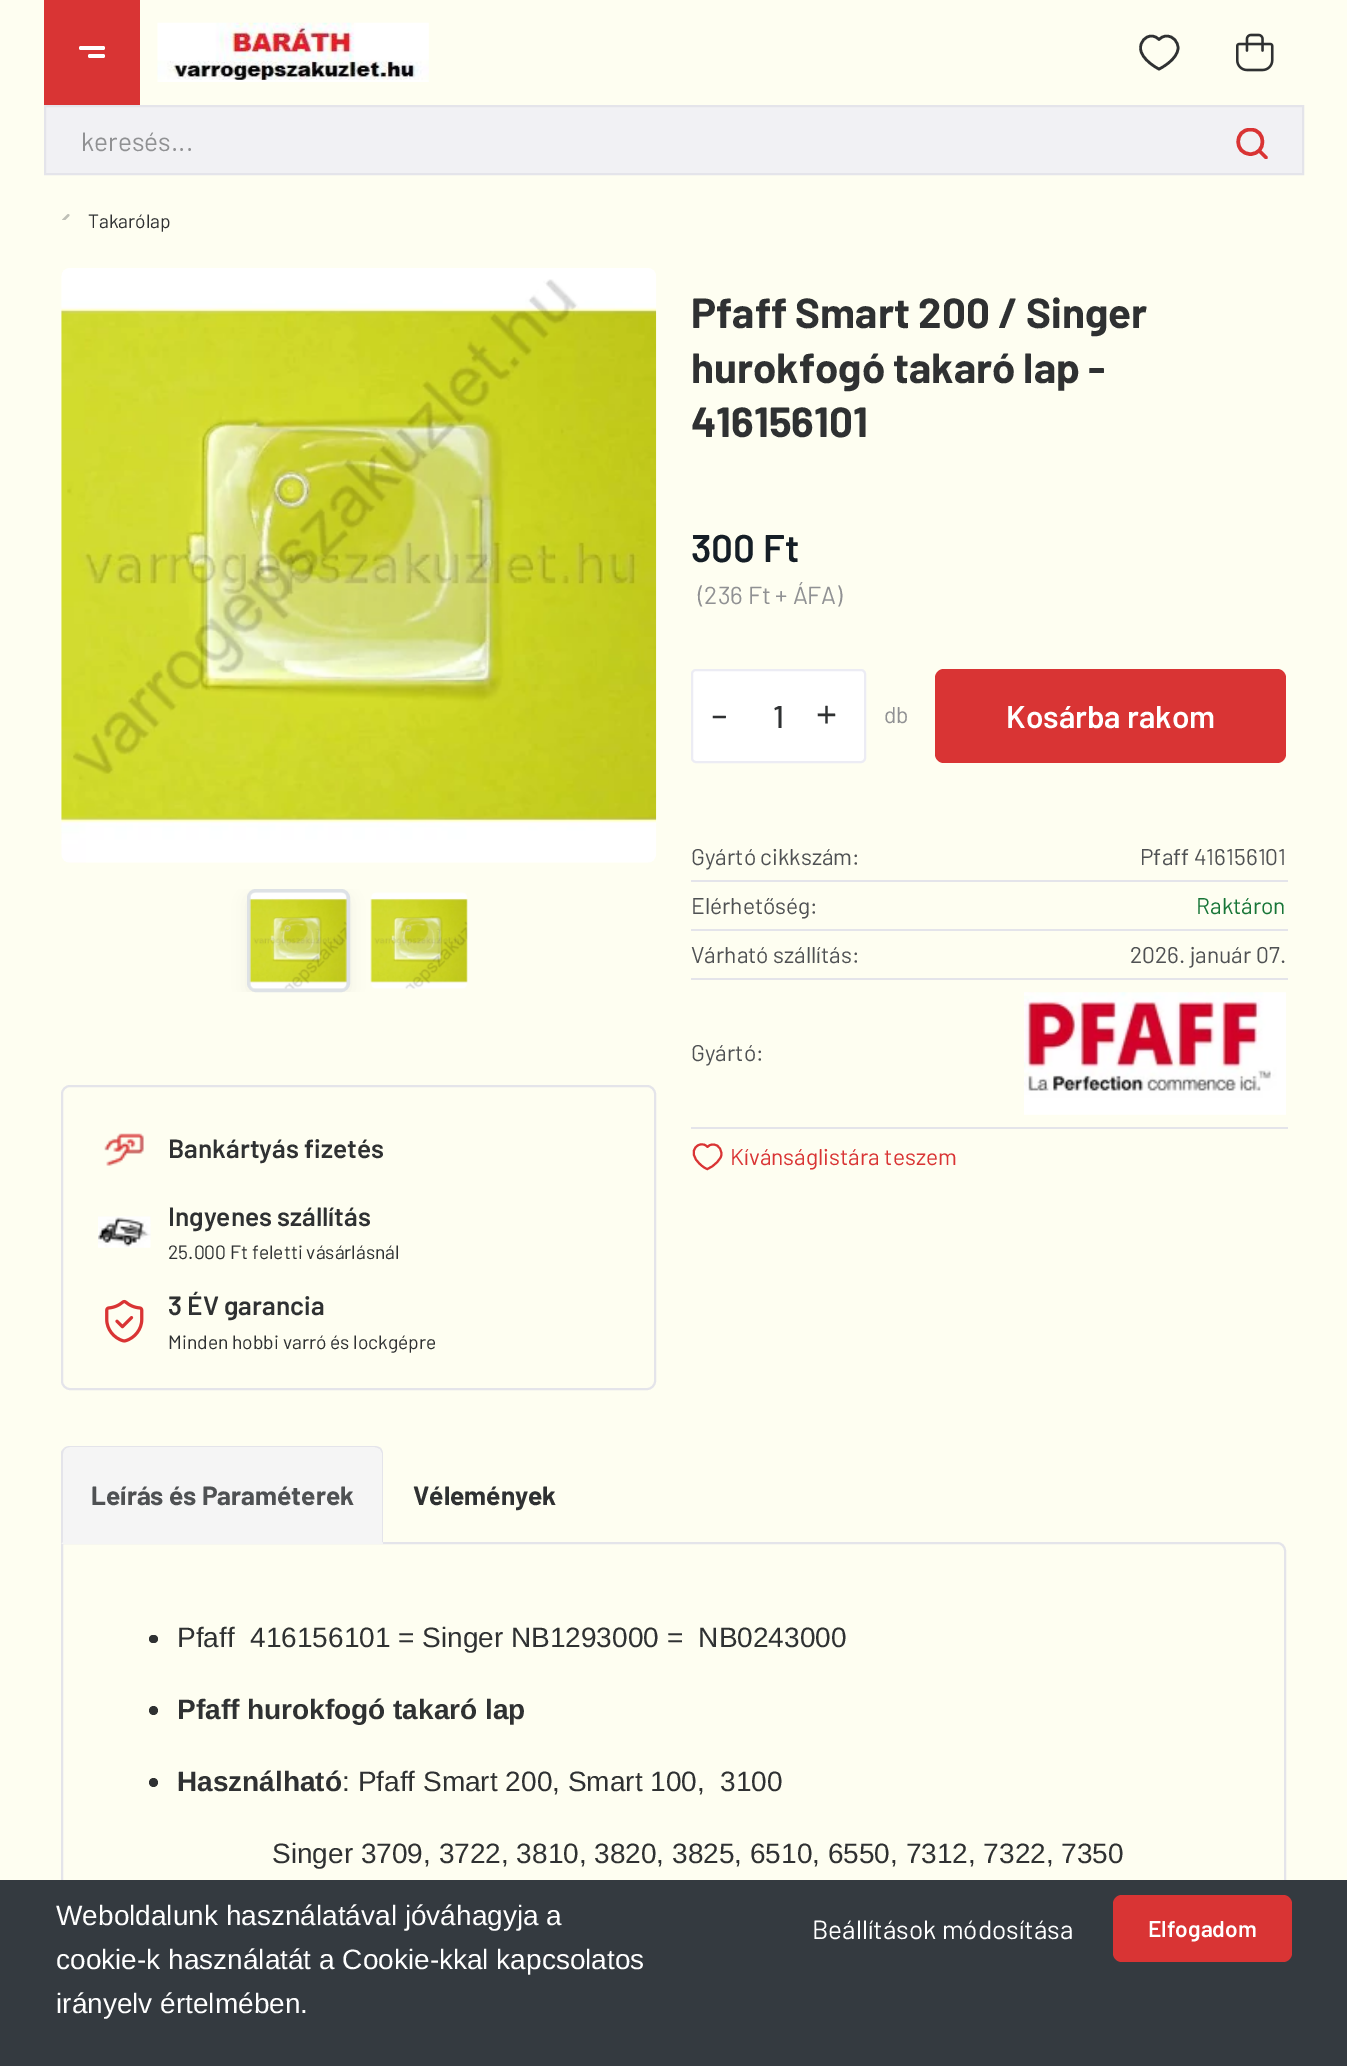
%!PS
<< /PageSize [1347 2066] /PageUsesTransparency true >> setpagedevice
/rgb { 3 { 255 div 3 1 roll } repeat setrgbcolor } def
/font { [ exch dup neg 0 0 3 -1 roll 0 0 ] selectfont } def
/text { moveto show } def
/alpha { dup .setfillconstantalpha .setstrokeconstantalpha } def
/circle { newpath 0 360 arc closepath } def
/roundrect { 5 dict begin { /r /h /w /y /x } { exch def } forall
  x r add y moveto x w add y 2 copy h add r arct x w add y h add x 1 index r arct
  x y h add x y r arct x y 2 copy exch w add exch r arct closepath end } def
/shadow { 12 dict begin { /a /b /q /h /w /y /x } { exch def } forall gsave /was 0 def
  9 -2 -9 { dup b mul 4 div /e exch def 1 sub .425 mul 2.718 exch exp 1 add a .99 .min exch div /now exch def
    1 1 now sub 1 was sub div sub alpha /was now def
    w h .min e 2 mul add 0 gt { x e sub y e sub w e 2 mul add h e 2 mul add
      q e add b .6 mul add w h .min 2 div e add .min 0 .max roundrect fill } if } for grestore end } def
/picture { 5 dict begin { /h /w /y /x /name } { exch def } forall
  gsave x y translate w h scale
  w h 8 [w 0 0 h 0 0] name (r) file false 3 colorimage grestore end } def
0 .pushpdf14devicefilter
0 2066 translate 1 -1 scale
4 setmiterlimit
254 254 241 rgb
0 0 1347 2066 rectfill
217 52 52 rgb
44 0 96 105 rectfill
255 255 255 rgb
79 46 26 4 2 roundrect fill
88 54 17 4 2 roundrect fill
(img_01.rgb) 157 22 272 60 picture
47 49 50 rgb
2.6 setlinewidth
1 setlinecap
1 setlinejoin
1166.5 36 moveto 7 0 11.5 6 11.5 12 rcurveto 0 11.5 -18.5 21 -19 21 rcurveto -0.5 0 -18.5 -9.5 -18.5 -21 rcurveto 0 -6 4.5 -12 11 -12 rcurveto 3.5 0 6 2 7.5 3.5 rcurveto 1.5 -1.5 4 -3.5 7.5 -3.5 rcurveto closepath stroke
(img_02.rgb) 1236 33 38 39 picture
241 241 244 rgb
45 106 moveto 1258 0 rlineto 0 68 rlineto -1258 0 rlineto closepath gsave fill grestore
228 228 234 rgb
2 setlinewidth
0 setlinecap
0 setlinejoin
stroke
gsave
1236 128 33 31 rectclip
217 52 52 rgb
3.5 setlinewidth
1 setlinecap
1 setlinejoin
1266 157.5 moveto -7 -7 rlineto 1250.5 154 moveto -16.5 0 -16.5 -24.5 0 -24.5 rcurveto 16 0 16 24.5 0 24.5 rcurveto closepath stroke
grestore
(img_03.rgb) 62 214 8 6 picture
255 255 255 rgb
692 670 173 92 4 roundrect gsave fill grestore
236 236 244 rgb
stroke
217 52 52 rgb
935 669 351 94 9 roundrect fill
228 228 234 rgb
691 880 597 2 rectfill
691 929 597 2 rectfill
691 978 597 2 rectfill
(img_04.rgb) 1024 992 262 123 picture
691 1127 597 2 rectfill
217 52 52 rgb
1 setlinecap
1 setlinejoin
713 1144.5 moveto 6.5 0 9.5 6.5 8 12 rcurveto -1.5 4 -5.5 7.5 -9 10 rcurveto -4.5 2.5 rlineto -1.5 0 -6.5 -3.5 -7 -4.5 rcurveto -16 -13.5 0 -26 7 -17.5 rcurveto 1 -1.5 3 -2.5 5.5 -2.5 rcurveto closepath stroke
(img_05.rgb) 61 268 596 595 picture
gsave
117 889 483 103 rectclip
0 0 0 rgb
247 894 103 104 9 9 0.05 shadow
grestore
222 226 230 rgb
4 setlinewidth
0 setlinecap
0 setlinejoin
249 891 99 99 7 roundrect stroke
(img_06.rgb) 249 892 98 97 picture
(img_07.rgb) 370 892 98 97 picture
228 228 234 rgb
2 setlinewidth
62 1086 593 303 8 roundrect stroke
(img_08.rgb) 104 1133 40 33 picture
(img_09.rgb) 98 1216 53 32 picture
(img_10.rgb) 105 1299 39 44 picture
62 1543 moveto 1215 0 rlineto 4.5 0 8 3.5 8 8 rcurveto 0 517 rlineto 0 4.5 -3.5 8 -8 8 rcurveto -1207 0 rlineto -4.5 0 -8 -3.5 -8 -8 rcurveto closepath stroke
245 245 245 rgb
70 1446 moveto 304 0 rlineto 5 0 9 4 9 9 rcurveto 0 89 rlineto -322 0 rlineto 0 -89 rlineto 0 -5 4 -9 9 -9 rcurveto closepath fill
228 228 234 rgb
70 1446 moveto -2 0 -5 1 -6 2 rcurveto 1 1 rlineto 1 -1 3 -2 5 -2 rcurveto 304 0 rlineto 2 0 4 1 6 2 rcurveto 1 -1 rlineto -2 -1 -4 -2 -7 -2 rcurveto closepath fill
383 1543 moveto 0 -89 rlineto 0 -2 -1 -4 -2 -6 rcurveto -1 1 rlineto 2 4 rlineto 0 89 rlineto closepath fill
245 245 245 rgb
383 1543 moveto -322 1 rlineto 2 -2 rlineto 319 0 rlineto closepath fill
228 228 234 rgb
61 1544 moveto 2 -2 rlineto 0 -88 rlineto 0 -2 1 -4 2 -5 rcurveto -1 -1 rlineto -1 1 -2 2 -3 4 rcurveto closepath fill
47 49 50 rgb
149 1635 9 8 4 roundrect fill
153.5 1710.5 4.5 circle fill
153.5 1782.5 4.5 circle fill
52 58 64 rgb
0 1880 1347 186 rectfill
217 52 52 rgb
1113 1895 179 67 9 roundrect fill
/Barlow-Regular 26.25 font
144 145 147 rgb
(keresés...) 81 151 text
/Barlow-Regular 19.25 font
47 49 50 rgb
(Takarólap) 88 228 text
/Barlow-Bold 42 font
(Pfaff Smart 200 / Singer) 691 328 text
(hurokfogó takaró lap -) 691 383 text
(416156101) 691 437 text
/Barlow-SemiBold 38.5 font
21 30 38 rgb
(300 Ft) 691 562 text
/Barlow-Regular 24.5 font
144 145 147 rgb
(\(236 Ft + ÁFA\)) 698 604 text
/Barlow-Regular 42 font
47 49 50 rgb
(-) 711 730 text
/Barlow-Medium 31.5 font
(1) 773 728 text
/Barlow-Regular 42 font
(+) 816 728 text
/Barlow-Regular 22.75 font
144 145 147 rgb
(db) 884 723 text
/Barlow-SemiBold 31.5 font
255 255 255 rgb
(Kosárba rakom) 1006 728 text
/Barlow-Regular 22.75 font
79 81 83 rgb
(Gyártó cikkszám:) 691 865 text
(Pfaff 416156101) 1140 865 text
(Elérhetőség:) 691 914 text
23 117 55 rgb
(Raktáron) 1196 914 text
79 81 83 rgb
(Várható szállítás:) 691 963 text
(2026. január 07.) 1130 963 text
(Gyártó:) 691 1061 text
217 52 52 rgb
(Kívánságlistára teszem) 730 1165 text
/Barlow-SemiBold 26.25 font
47 49 50 rgb
(Bankártyás fizetés) 168 1158 text
(Ingyenes szállítás) 168 1226 text
/Barlow-Regular 19.25 font
(25.000 Ft feletti vásárlásnál) 168 1259 text
/Barlow-SemiBold 26.25 font
(3 ÉV garancia) 168 1315 text
/Barlow-Regular 19.25 font
(Minden hobbi varró és lockgépre) 168 1349 text
/Barlow-Bold 26.25 font
79 81 83 rgb
(Leírás és Paraméterek) 91 1505 text
47 49 50 rgb
(Vélemények) 413 1505 text
/LiberationSans-Regular 28 font
(Pfaff  416156101 = Singer NB1293000 =  NB0243000) 177 1647 text
/LiberationSans-Bold 28 font
(Pfaff hurokfogó takaró lap) 177 1719 text
(Használható) 177 1791 text
/LiberationSans-Regular 28 font
(: Pfaff Smart 200, Smart 100,  3100) 342 1791 text
(Singer 3709, 3722, 3810, 3820, 3825, 6510, 6550, 7312, 7322, 7350) 272 1863 text
255 255 255 rgb
(Weboldalunk használatával jóváhagyja a) 56 1925 text
(cookie-k használatát a Cookie-kkal kapcsolatos) 56 1969 text
(irányelv értelmében.) 56 2013 text
/Barlow-Regular 26.25 font
(Beállítások módosítása) 812 1939 text
/Barlow-SemiBold 22.75 font
(Elfogadom) 1148 1937 text
.poppdf14devicefilter showpage
